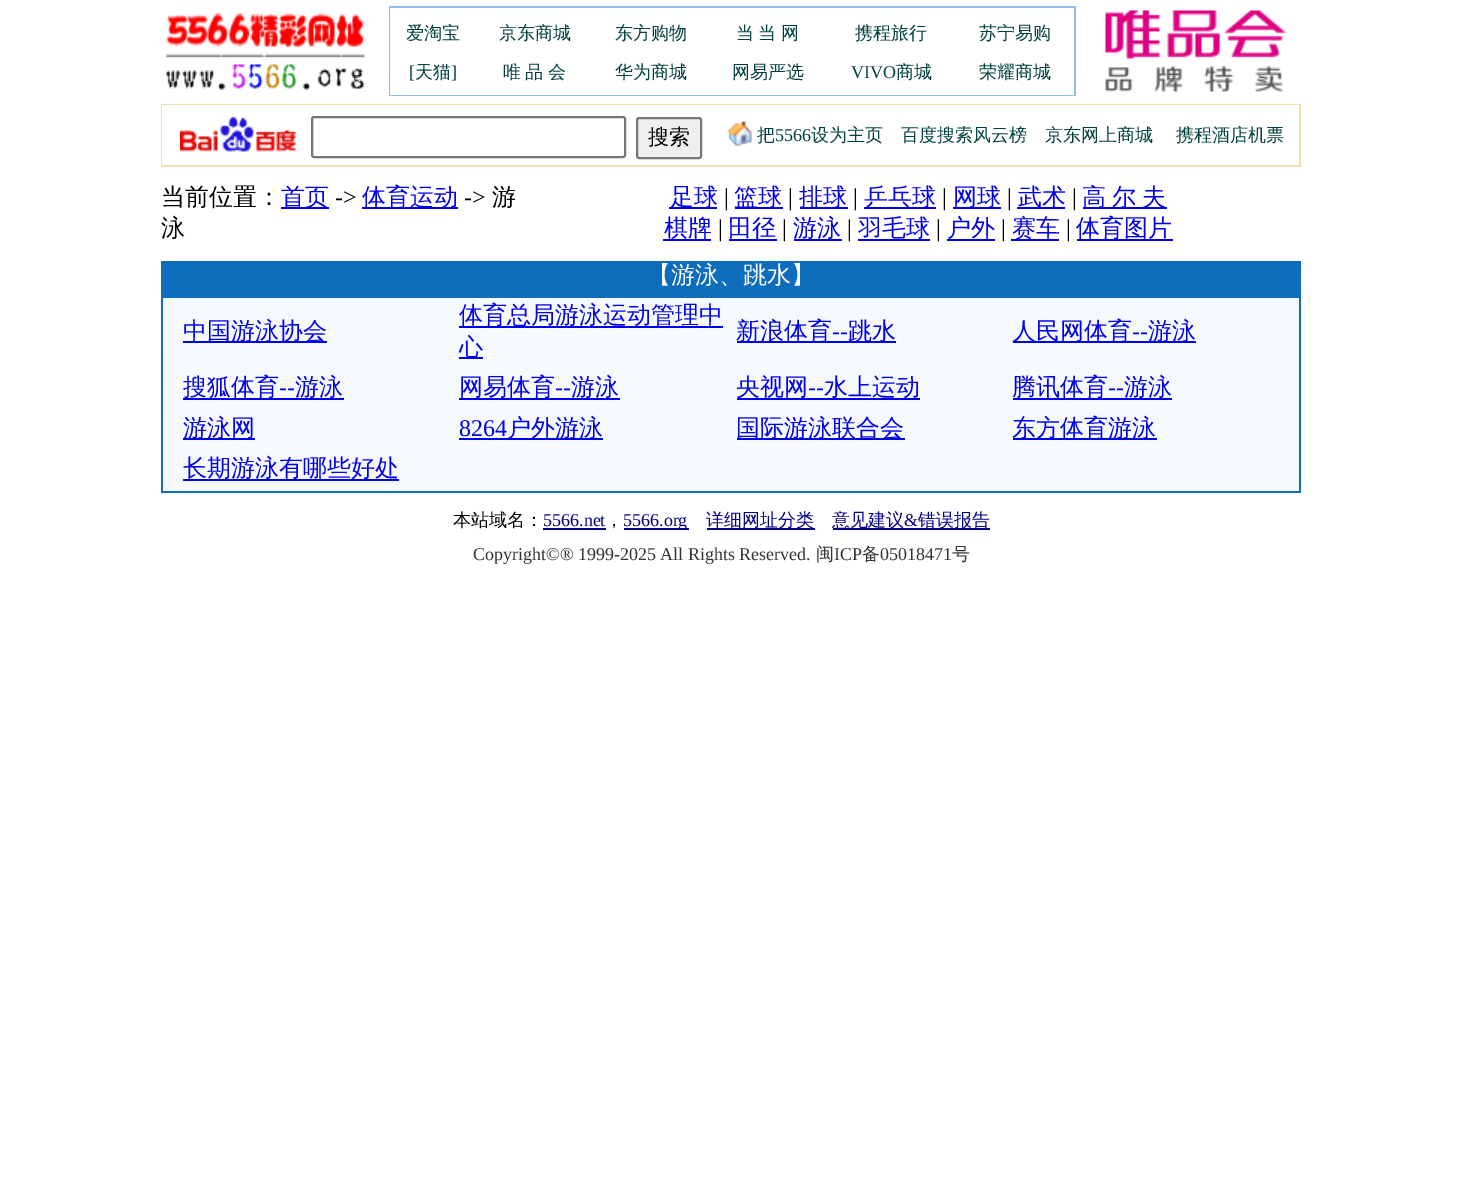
%!PS
<< /PageSize [1461 1198] >> setpagedevice
/rgb { 3 { 255 div 3 1 roll } repeat setrgbcolor } def
/font { [ exch dup neg 0 0 3 -1 roll 0 0 ] selectfont } def
/text { moveto show } def
/roundrect { 5 dict begin { /r /h /w /y /x } { exch def } forall
  x r add y moveto x w add y 2 copy h add r arct x w add y h add x 1 index r arct
  x y h add x y r arct x y 2 copy exch w add exch r arct closepath end } def
/picture { 5 dict begin { /h /w /y /x /name } { exch def } forall
  gsave x y translate w h scale
  w h 8 [w 0 0 h 0 0] name (r) file false 3 colorimage grestore end } def
0 1198 translate 1 -1 scale
4 setmiterlimit
255 255 255 rgb
0 0 1461 1198 rectfill
(img_01.rgb) 166 13 199 78 picture
142 186 240 rgb
389 6 687 90 rectfill
255 255 255 rgb
390 8 684 87 rectfill
(img_02.rgb) 1105 10 181 82 picture
235 225 180 rgb
161 104 1140 63 rectfill
255 255 255 rgb
162 105 1137 60 rectfill
(img_03.rgb) 180 117 116 35 picture
118 118 118 rgb
2 setlinewidth
312 117 313 40 2 roundrect stroke
239 239 239 rgb
637 118 64 40 2 roundrect gsave fill grestore
118 118 118 rgb
stroke
(img_04.rgb) 727 121 25 25 picture
0 0 238 rgb
281 207 48 2 rectfill
362 207 96 2 rectfill
669 207 48 2 rectfill
735 207 48 2 rectfill
800 207 48 2 rectfill
864 207 72 2 rectfill
953 207 48 2 rectfill
1017 207 48 2 rectfill
1083 207 84 2 rectfill
663 239 48 2 rectfill
729 239 48 2 rectfill
794 239 48 2 rectfill
858 239 72 2 rectfill
947 239 48 2 rectfill
1011 239 48 2 rectfill
1077 239 96 2 rectfill
246 250 255 rgb
163 298 1136 193 rectfill
14 109 188 rgb
161 261 1140 32 rectfill
161 293 1140 5 rectfill
161 297 2 194 rectfill
1299 297 2 194 rectfill
0 0 238 rgb
183 341 144 2 rectfill
459 326 264 2 rectfill
459 357 24 2 rectfill
737 341 159 2 rectfill
1013 341 183 2 rectfill
183 398 161 2 rectfill
459 398 161 2 rectfill
737 398 183 2 rectfill
1013 398 159 2 rectfill
183 438 72 2 rectfill
459 438 144 2 rectfill
737 438 168 2 rectfill
1013 438 144 2 rectfill
183 479 216 2 rectfill
14 109 188 rgb
161 491 1140 2 rectfill
0 0 136 rgb
543 528 63 2 rectfill
624 528 65 2 rectfill
707 528 108 2 rectfill
833 528 157 2 rectfill
/WenQuanYiZenHei-Medium 18 font
0 64 64 rgb
(爱淘宝) 406 39 text
(京东商城) 499 39 text
(东方购物) 615 39 text
736 39 moveto -1 0 32 (当 当 网) widthshow
(携程旅行) 855 39 text
(苏宁易购) 979 39 text
/LiberationSerif-Regular 18 font
([) 409 78 text
/WenQuanYiZenHei-Medium 18 font
(天猫) 415 78 text
/LiberationSerif-Regular 18 font
(]) 451 78 text
/WenQuanYiZenHei-Medium 18 font
503 78 moveto -1 0 32 (唯 品 会) widthshow
(华为商城) 615 78 text
(网易严选) 732 78 text
/LiberationSerif-Regular 18 font
(VIVO) 851 78 text
/WenQuanYiZenHei-Medium 18 font
(商城) 896 78 text
(荣耀商城) 979 78 text
/WenQuanYiZenHei-Medium 21 font
0 0 0 rgb
(搜索) 648 144 text
/WenQuanYiZenHei-Medium 18 font
0 64 64 rgb
(把) 757 141 text
/LiberationSerif-Regular 18 font
(5566) 775 141 text
/WenQuanYiZenHei-Medium 18 font
(设为主页) 811 141 text
(百度搜索风云榜) 901 141 text
(京东网上商城) 1045 141 text
(携程酒店机票) 1176 141 text
/WenQuanYiZenHei-Medium 24 font
0 0 0 rgb
(当前位置：) 161 205 text
0 0 238 rgb
(首页) 281 205 text
/LiberationSerif-Regular 24 font
0 0 0 rgb
(->) 335 205 text
/WenQuanYiZenHei-Medium 24 font
0 0 238 rgb
(体育运动) 362 205 text
/LiberationSerif-Regular 24 font
0 0 0 rgb
(->) 464 205 text
/WenQuanYiZenHei-Medium 24 font
(游) 492 205 text
(泳) 161 236 text
0 0 238 rgb
(足球) 670 205 text
/LiberationSerif-Regular 24 font
0 0 0 rgb
(|) 724 205 text
/WenQuanYiZenHei-Medium 24 font
0 0 238 rgb
(篮球) 734 205 text
/LiberationSerif-Regular 24 font
0 0 0 rgb
(|) 788 205 text
/WenQuanYiZenHei-Medium 24 font
0 0 238 rgb
(排球) 799 205 text
/LiberationSerif-Regular 24 font
0 0 0 rgb
(|) 853 205 text
/WenQuanYiZenHei-Medium 24 font
0 0 238 rgb
(乒乓球) 864 205 text
/LiberationSerif-Regular 24 font
0 0 0 rgb
(|) 942 205 text
/WenQuanYiZenHei-Medium 24 font
0 0 238 rgb
(网球) 953 205 text
/LiberationSerif-Regular 24 font
0 0 0 rgb
(|) 1007 205 text
/WenQuanYiZenHei-Medium 24 font
0 0 238 rgb
(武术) 1018 205 text
/LiberationSerif-Regular 24 font
0 0 0 rgb
(|) 1072 205 text
/WenQuanYiZenHei-Medium 24 font
0 0 238 rgb
1082 205 moveto -1 0 32 (高 尔 夫) widthshow
(棋牌) 664 236 text
/LiberationSerif-Regular 24 font
0 0 0 rgb
(|) 718 236 text
/WenQuanYiZenHei-Medium 24 font
0 0 238 rgb
(田径) 728 236 text
/LiberationSerif-Regular 24 font
0 0 0 rgb
(|) 782 236 text
/WenQuanYiZenHei-Medium 24 font
0 0 238 rgb
(游泳) 793 236 text
/LiberationSerif-Regular 24 font
0 0 0 rgb
(|) 847 236 text
/WenQuanYiZenHei-Medium 24 font
0 0 238 rgb
(羽毛球) 858 236 text
/LiberationSerif-Regular 24 font
0 0 0 rgb
(|) 936 236 text
/WenQuanYiZenHei-Medium 24 font
0 0 238 rgb
(户外) 947 236 text
/LiberationSerif-Regular 24 font
0 0 0 rgb
(|) 1001 236 text
/WenQuanYiZenHei-Medium 24 font
0 0 238 rgb
(赛车) 1012 236 text
/LiberationSerif-Regular 24 font
0 0 0 rgb
(|) 1066 236 text
/WenQuanYiZenHei-Medium 24 font
0 0 238 rgb
(体育图片) 1076 236 text
255 255 255 rgb
(【游泳、跳水】) 647 283 text
0 0 238 rgb
(中国游泳协会) 183 339 text
(体育总局游泳运动管理中) 459 323 text
(心) 459 355 text
(新浪体育) 736 339 text
/LiberationSerif-Regular 24 font
(--) 832 339 text
/WenQuanYiZenHei-Medium 24 font
(跳水) 848 339 text
(人民网体育) 1012 339 text
/LiberationSerif-Regular 24 font
(--) 1132 339 text
/WenQuanYiZenHei-Medium 24 font
(游泳) 1148 339 text
(搜狐体育) 183 395 text
/LiberationSerif-Regular 24 font
(--) 279 395 text
/WenQuanYiZenHei-Medium 24 font
(游泳) 295 395 text
(网易体育) 459 395 text
/LiberationSerif-Regular 24 font
(--) 555 395 text
/WenQuanYiZenHei-Medium 24 font
(游泳) 571 395 text
(央视网) 736 395 text
/LiberationSerif-Regular 24 font
(--) 808 395 text
/WenQuanYiZenHei-Medium 24 font
(水上运动) 824 395 text
(腾讯体育) 1012 395 text
/LiberationSerif-Regular 24 font
(--) 1108 395 text
/WenQuanYiZenHei-Medium 24 font
(游泳) 1124 395 text
(游泳网) 183 436 text
/LiberationSerif-Regular 24 font
(8264) 459 436 text
/WenQuanYiZenHei-Medium 24 font
(户外游泳) 507 436 text
(国际游泳联合会) 736 436 text
(东方体育游泳) 1012 436 text
(长期游泳有哪些好处) 183 476 text
/WenQuanYiZenHei-Medium 18 font
0 0 0 rgb
(本站域名：) 453 526 text
/LiberationSerif-Regular 18 font
0 0 136 rgb
(5566.net) 543 526 text
/WenQuanYiZenHei-Medium 18 font
0 0 0 rgb
(，) 605 526 text
/LiberationSerif-Regular 18 font
0 0 136 rgb
(5566.org) 623 526 text
/WenQuanYiZenHei-Medium 18 font
(详细网址分类) 706 526 text
(意见建议) 832 526 text
/LiberationSerif-Regular 18 font
(&) 904 526 text
/WenQuanYiZenHei-Medium 18 font
(错误报告) 918 526 text
/LiberationSerif-Regular 18 font
51 51 51 rgb
(Copyright©® 1999-2025 All Rights Reserved.) 473 560 text
/WenQuanYiZenHei-Medium 18 font
(闽) 816 560 text
/LiberationSerif-Regular 18 font
(ICP) 834 560 text
/WenQuanYiZenHei-Medium 18 font
(备) 862 560 text
/LiberationSerif-Regular 18 font
(05018471) 880 560 text
/WenQuanYiZenHei-Medium 18 font
(号) 952 560 text
showpage
